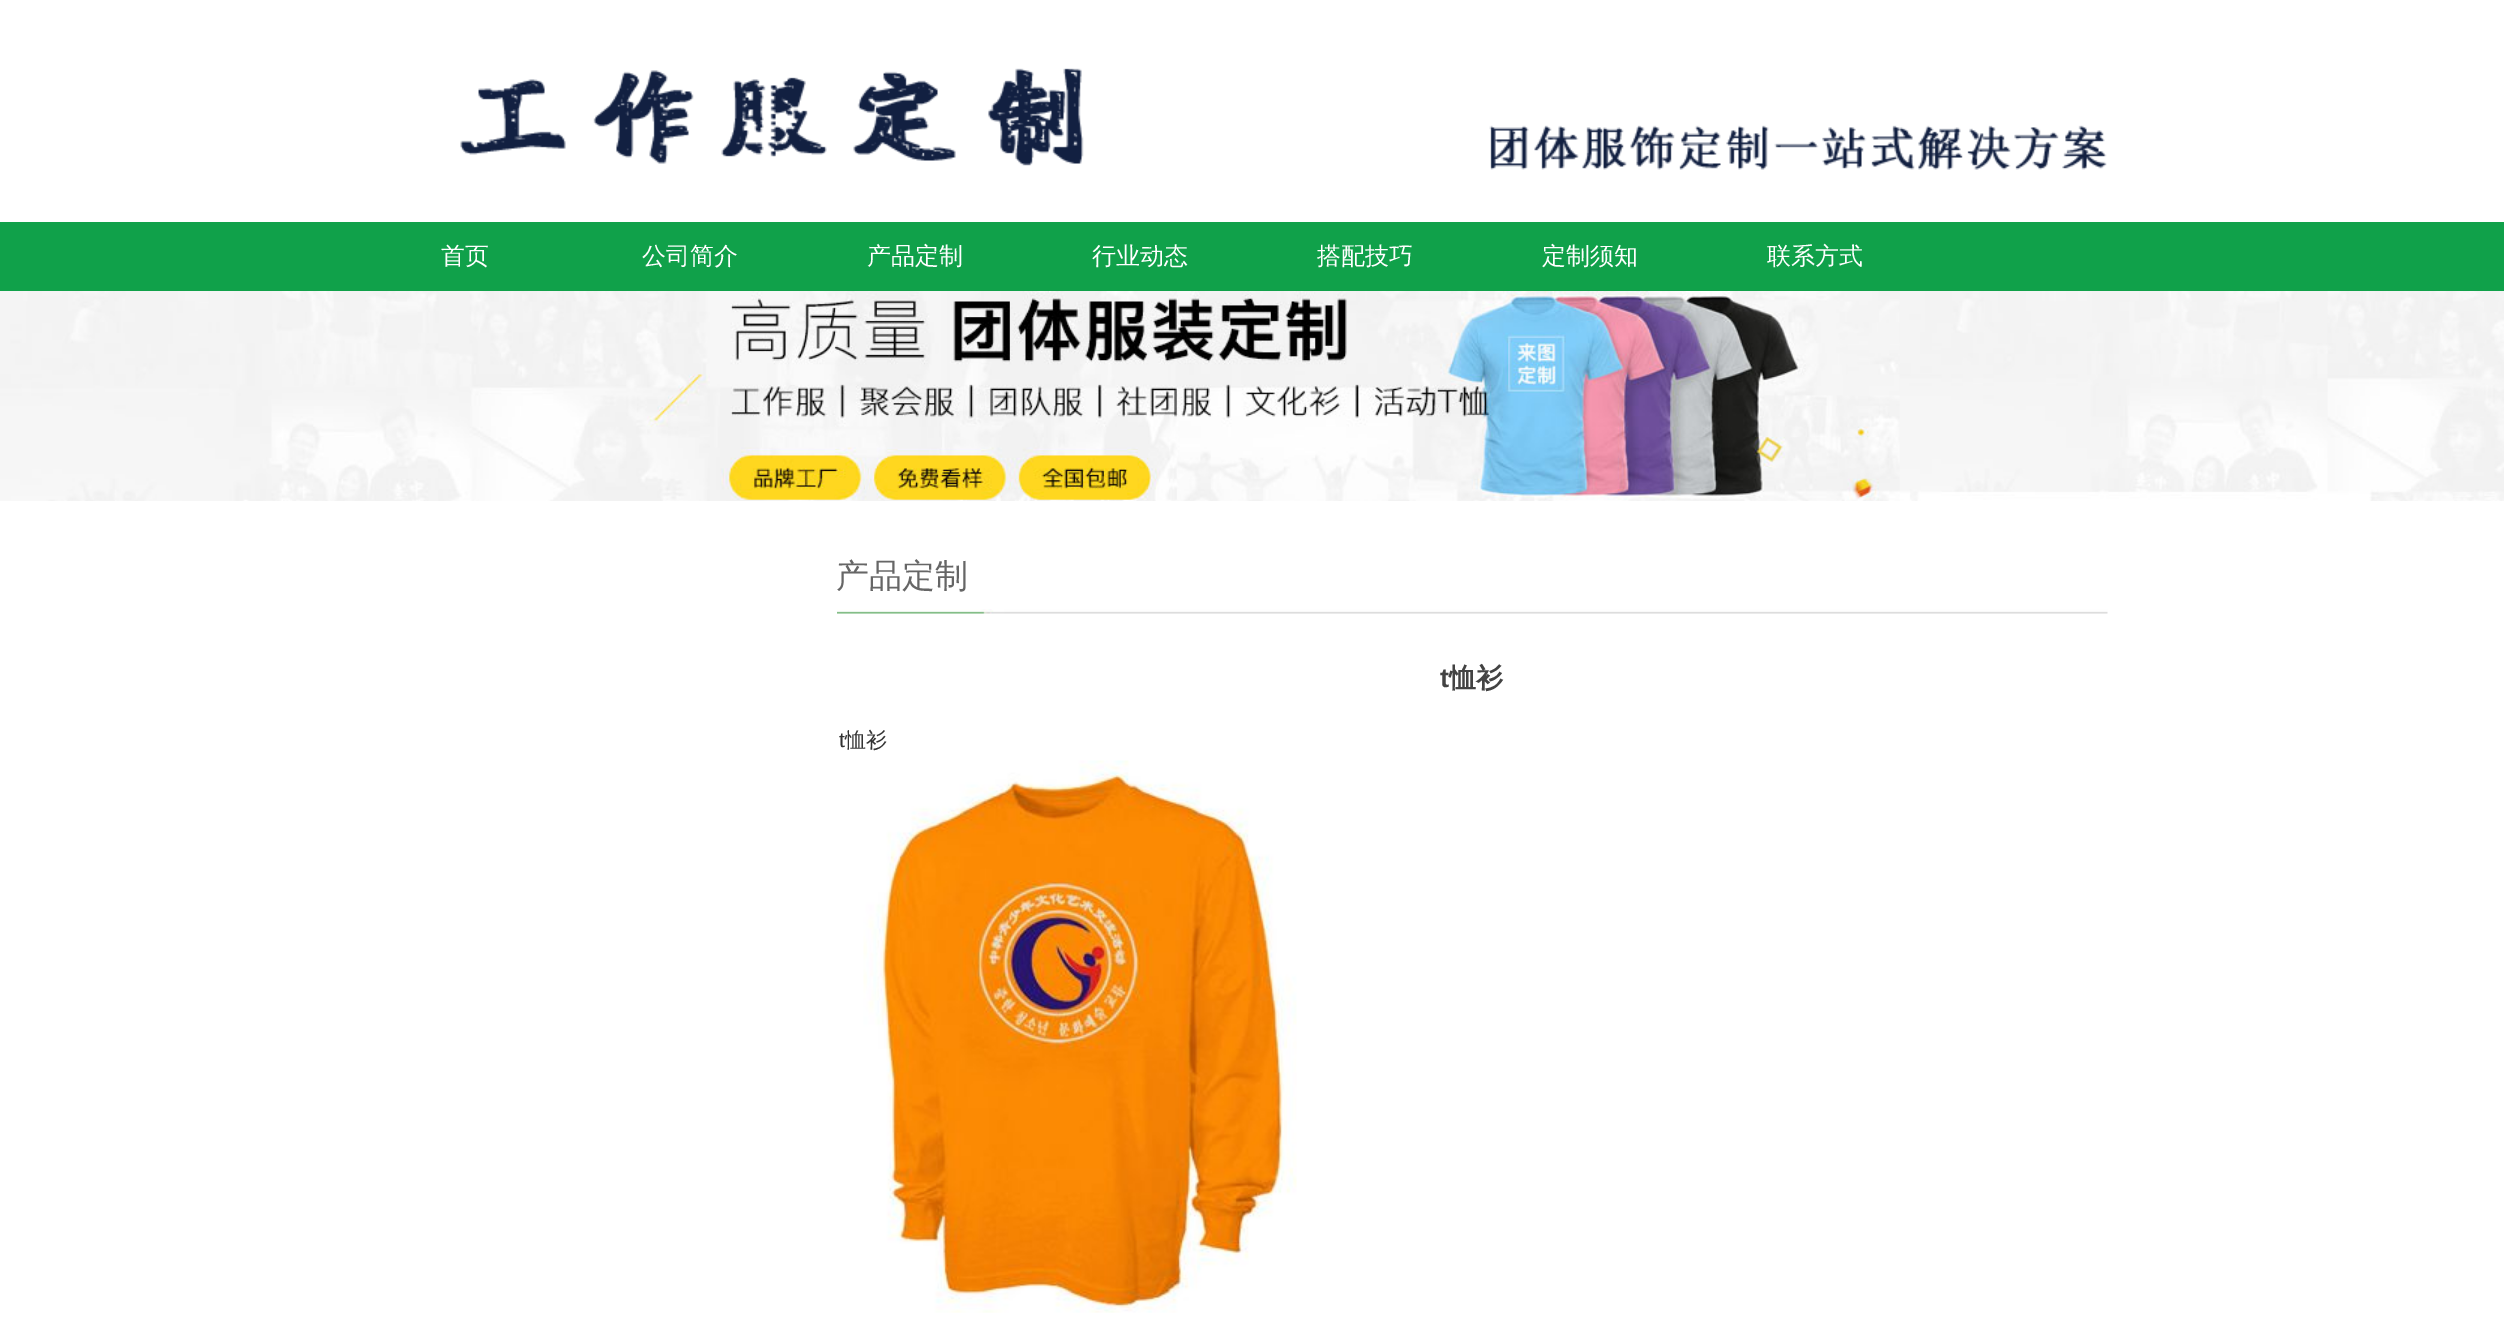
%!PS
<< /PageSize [2504 1327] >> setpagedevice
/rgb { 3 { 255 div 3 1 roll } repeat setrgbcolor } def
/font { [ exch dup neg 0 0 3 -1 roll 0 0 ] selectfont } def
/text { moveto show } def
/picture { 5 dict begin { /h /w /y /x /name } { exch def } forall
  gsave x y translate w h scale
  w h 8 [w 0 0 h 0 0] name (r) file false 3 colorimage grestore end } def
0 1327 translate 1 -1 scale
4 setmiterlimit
255 255 255 rgb
0 0 2504 1327 rectfill
(img_01.rgb) 460 68 1647 102 picture
16 161 74 rgb
0 222 2504 69 rectfill
(img_02.rgb) 0 291 2504 210 picture
(img_03.rgb) 837 609 1271 5 picture
(img_04.rgb) 863 760 434 553 picture
/WenQuanYiZenHei-Medium 24 font
255 255 255 rgb
(首页) 441 264 text
(公司简介) 642 264 text
(产品定制) 867 264 text
(行业动态) 1092 264 text
(搭配技巧) 1317 264 text
(定制须知) 1542 264 text
(联系方式) 1767 264 text
/WenQuanYiZenHei-Medium 33 font
102 102 102 rgb
(产品定制) 836 587 text
/LiberationSans-Bold 27 font
67 67 67 rgb
(t) 1440 687 text
/WenQuanYiZenHei-Bold 27 font
(恤衫) 1449 687 text
/LiberationSans-Regular 21 font
51 51 51 rgb
(t) 839 747 text
/WenQuanYiZenHei-Medium 21 font
(恤衫) 845 747 text
showpage
